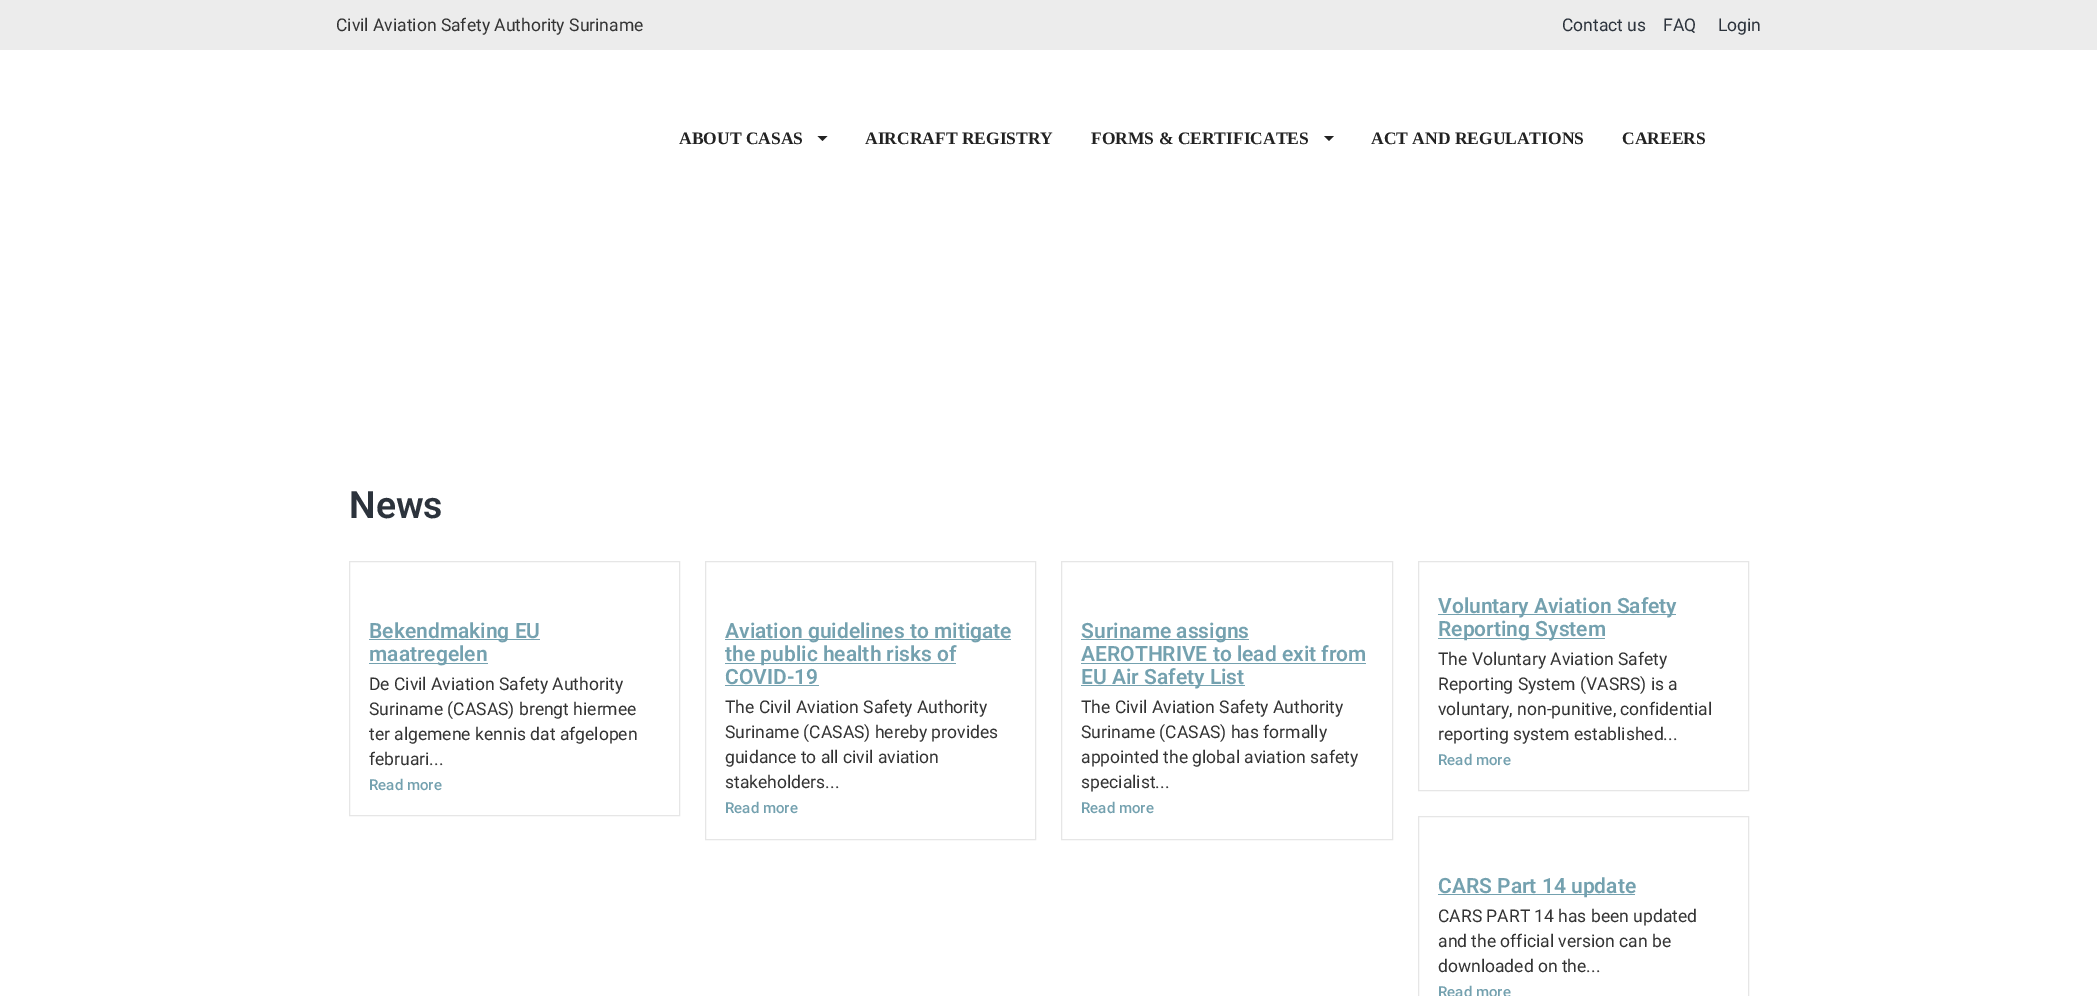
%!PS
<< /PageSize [2097 996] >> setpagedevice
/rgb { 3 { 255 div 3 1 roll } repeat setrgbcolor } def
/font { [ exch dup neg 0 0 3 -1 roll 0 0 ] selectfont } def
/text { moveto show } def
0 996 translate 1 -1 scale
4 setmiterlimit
255 255 255 rgb
0 0 2097 996 rectfill
236 236 236 rgb
0 0 2097 50 rectfill
34 34 34 rgb
817.5 136 moveto 10 0 rlineto -5 5 rlineto closepath fill
1324 136 moveto 10 0 rlineto -5 5 rlineto closepath fill
230 230 230 rgb
349.5 561.5 330 254 rectstroke
116 161 175 rgb
369 639 171 1 rectfill
369 663 119 1 rectfill
230 230 230 rgb
705.5 561.5 330 278 rectstroke
116 161 175 rgb
725 639 286 1 rectfill
725 663 231 1 rectfill
725 685 94 1 rectfill
230 230 230 rgb
1061.5 561.5 331 278 rectstroke
116 161 175 rgb
1081 639 168 1 rectfill
1081 663 285 1 rectfill
1081 685 164 1 rectfill
230 230 230 rgb
1418.5 561.5 330 229 rectstroke
116 161 175 rgb
1438 614 238 1 rectfill
1438 638 167 1 rectfill
230 230 230 rgb
1418.5 816.5 330 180 rectstroke
116 161 175 rgb
1438 894 197 1 rectfill
/Roboto-Regular 17.5 font
51 51 51 rgb
(Civil Aviation Safety Authority Suriname) 336 31 text
44 51 60 rgb
(Contact us) 1562 31 text
(FAQ) 1663 31 text
(Login) 1718 31 text
/LiberationSerif-Bold 17.5 font
34 34 34 rgb
(ABOUT CASAS) 679 144 text
(AIRCRAFT REGISTRY) 865 144 text
(FORMS & CERTIFICATES) 1091 144 text
(ACT AND REGULATIONS) 1371 144 text
(CAREERS) 1622 144 text
/Roboto-SemiBold 37.5 font
44 51 60 rgb
(News) 349 518 text
/Roboto-SemiBold 21 font
116 161 175 rgb
(Bekendmaking EU) 369 638 text
(maatregelen) 369 661 text
/Roboto-Regular 17.5 font
51 51 51 rgb
(De Civil Aviation Safety Authority) 369 690 text
(Suriname \(CASAS\) brengt hiermee) 369 715 text
(ter algemene kennis dat afgelopen) 369 740 text
(februari...) 369 765 text
/Roboto-Medium 15 font
116 161 175 rgb
(Read more) 369 790 text
/Roboto-SemiBold 21 font
(Aviation guidelines to mitigate) 725 638 text
(the public health risks of) 725 661 text
(COVID-19) 725 684 text
/Roboto-Regular 17.5 font
51 51 51 rgb
(The Civil Aviation Safety Authority) 725 713 text
(Suriname \(CASAS\) hereby provides) 725 738 text
(guidance to all civil aviation) 725 763 text
(stakeholders...) 725 788 text
/Roboto-Medium 15 font
116 161 175 rgb
(Read more) 725 813 text
/Roboto-SemiBold 21 font
(Suriname assigns) 1081 638 text
(AEROTHRIVE to lead exit from) 1081 661 text
(EU Air Safety List) 1081 684 text
/Roboto-Regular 17.5 font
51 51 51 rgb
(The Civil Aviation Safety Authority) 1081 713 text
(Suriname \(CASAS\) has formally) 1081 738 text
(appointed the global aviation safety) 1081 763 text
(specialist...) 1081 788 text
/Roboto-Medium 15 font
116 161 175 rgb
(Read more) 1081 813 text
/Roboto-SemiBold 21 font
(Voluntary Aviation Safety) 1438 613 text
(Reporting System) 1438 636 text
/Roboto-Regular 17.5 font
51 51 51 rgb
(The Voluntary Aviation Safety) 1438 665 text
(Reporting System \(VASRS\) is a) 1438 690 text
(voluntary, non-punitive, confidential) 1438 715 text
(reporting system established...) 1438 740 text
/Roboto-Medium 15 font
116 161 175 rgb
(Read more) 1438 765 text
/Roboto-SemiBold 21 font
(CARS Part 14 update) 1438 893 text
/Roboto-Regular 17.5 font
51 51 51 rgb
(CARS PART 14 has been updated) 1438 922 text
(and the official version can be) 1438 947 text
(downloaded on the...) 1438 972 text
/Roboto-Medium 15 font
116 161 175 rgb
(Read more) 1438 997 text
showpage
